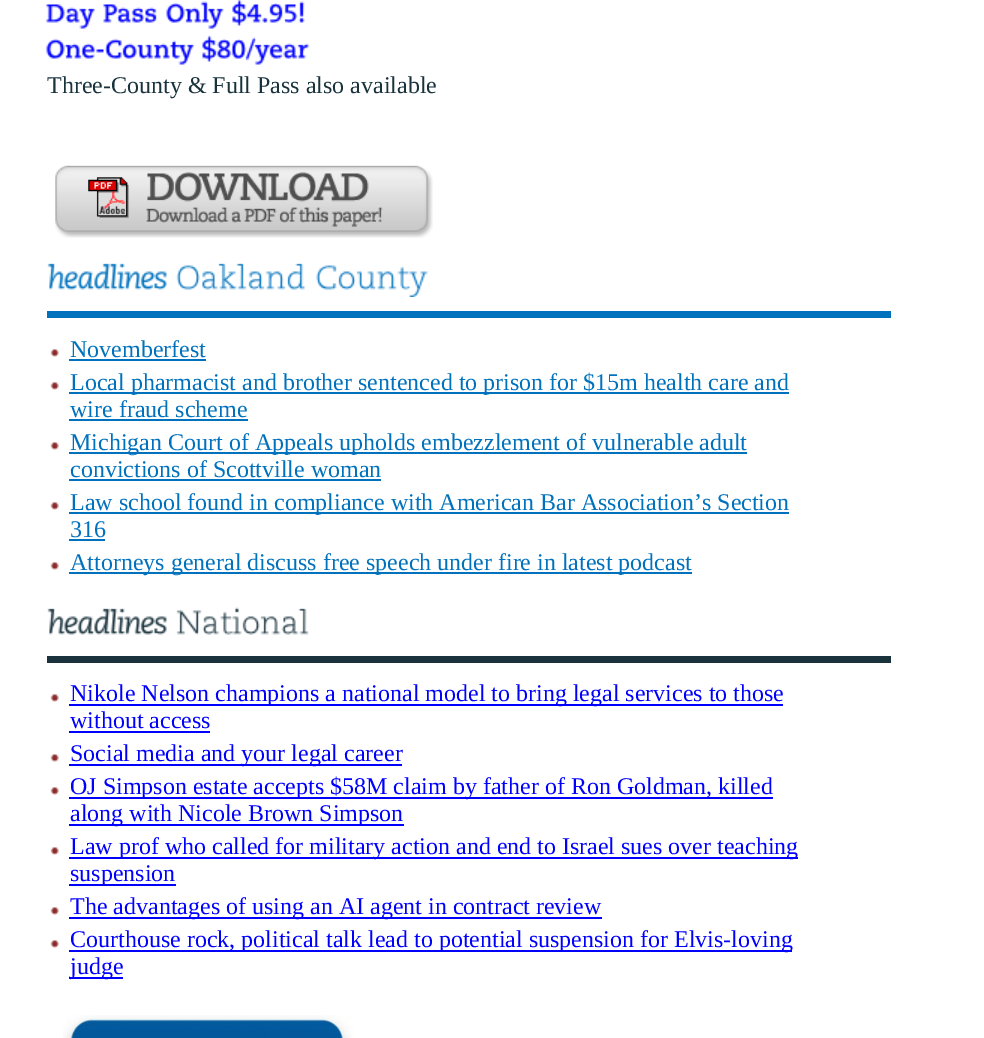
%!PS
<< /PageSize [984 1038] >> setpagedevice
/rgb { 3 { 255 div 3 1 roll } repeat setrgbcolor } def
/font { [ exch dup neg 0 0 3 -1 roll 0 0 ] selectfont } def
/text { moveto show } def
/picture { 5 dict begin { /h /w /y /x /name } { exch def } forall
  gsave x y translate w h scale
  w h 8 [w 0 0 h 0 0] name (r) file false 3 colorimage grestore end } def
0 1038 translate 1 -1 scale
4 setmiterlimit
255 255 255 rgb
0 0 984 1038 rectfill
(img_01.rgb) 46 4 49 25 picture
(img_02.rgb) 103 4 54 19 picture
(img_03.rgb) 166 1 58 28 picture
(img_04.rgb) 232 0 73 26 picture
(img_05.rgb) 46 38 148 27 picture
(img_06.rgb) 202 35 108 30 picture
(img_07.rgb) 55 165 378 73 picture
0 114 189 rgb
47 311 844 7 rectfill
(img_08.rgb) 47 263 120 27 picture
(img_09.rgb) 176 263 129 27 picture
(img_10.rgb) 316 265 112 32 picture
(img_11.rgb) 50 349 9 8 picture
69 359 137 2 rectfill
(img_11.rgb) 50 382 9 8 picture
69 392 720 2 rectfill
69 419 179 2 rectfill
(img_11.rgb) 50 442 9 8 picture
69 452 678 2 rectfill
69 479 312 2 rectfill
(img_11.rgb) 50 502 9 8 picture
69 512 720 2 rectfill
69 539 36 2 rectfill
(img_11.rgb) 50 562 9 8 picture
69 572 623 2 rectfill
25 50 60 rgb
47 656 844 7 rectfill
(img_12.rgb) 47 608 120 27 picture
(img_13.rgb) 176 607 133 28 picture
(img_11.rgb) 50 694 9 8 picture
0 0 255 rgb
69 704 714 2 rectfill
69 731 141 2 rectfill
(img_11.rgb) 50 754 9 8 picture
69 764 333 2 rectfill
(img_11.rgb) 50 787 9 8 picture
69 797 704 2 rectfill
69 824 335 2 rectfill
(img_11.rgb) 50 847 9 8 picture
69 857 729 2 rectfill
69 884 107 2 rectfill
(img_11.rgb) 50 907 9 8 picture
69 917 533 2 rectfill
(img_11.rgb) 50 940 9 8 picture
69 950 723 2 rectfill
69 977 54 2 rectfill
(img_14.rgb) 63 1015 291 23 picture
/LiberationSerif-Regular 24 font
25 50 60 rgb
(Three-County & Full Pass also available) 47 93 text
0 114 189 rgb
(Novemberfest) 70 357 text
(Local pharmacist and brother sentenced to prison for $15m health care and) 70 390 text
(wire fraud scheme) 70 417 text
(Michigan Court of Appeals upholds embezzlement of vulnerable adult) 70 450 text
(convictions of Scottville woman) 70 477 text
(Law school found in compliance with American Bar Association’s Section) 70 510 text
(316) 70 537 text
(Attorneys general discuss free speech under fire in latest podcast) 70 570 text
0 0 255 rgb
(Nikole Nelson champions a national model to bring legal services to those) 70 701 text
(without access) 70 728 text
(Social media and your legal career) 70 761 text
(OJ Simpson estate accepts $58M claim by father of Ron Goldman, killed) 70 794 text
(along with Nicole Brown Simpson) 70 821 text
(Law prof who called for military action and end to Israel sues over teaching) 70 854 text
(suspension) 70 881 text
(The advantages of using an AI agent in contract review) 70 914 text
(Courthouse rock, political talk lead to potential suspension for Elvis-loving) 70 947 text
(judge) 70 974 text
showpage
